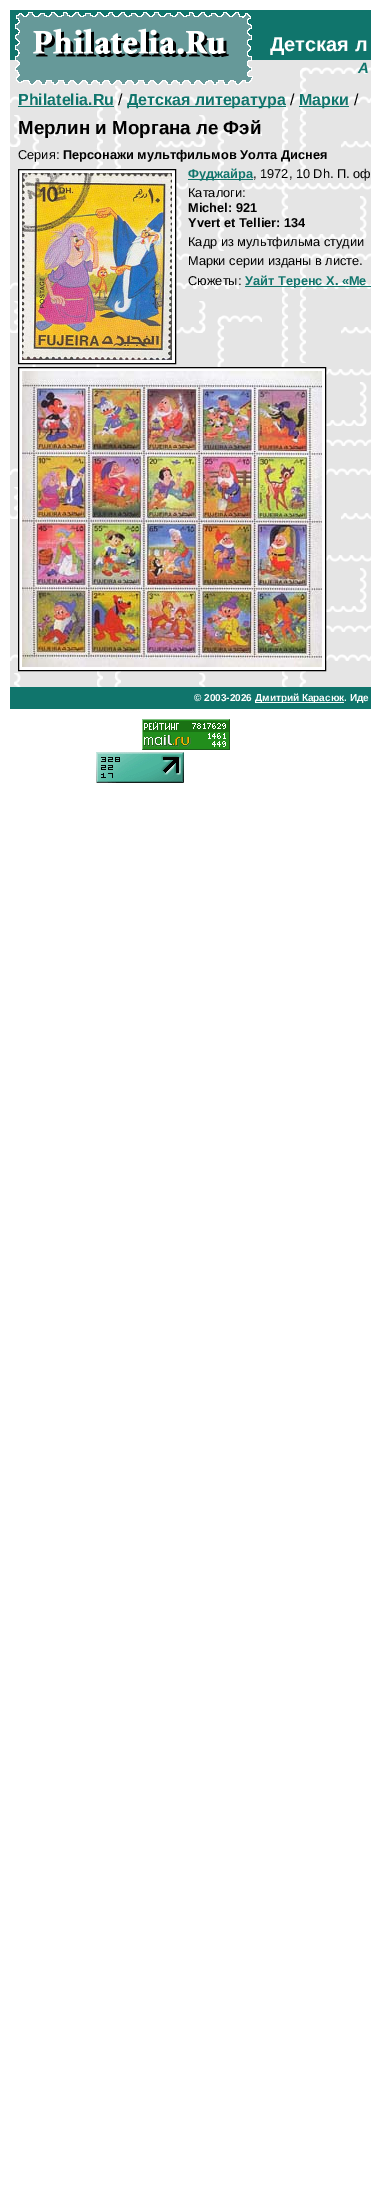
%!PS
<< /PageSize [371 2187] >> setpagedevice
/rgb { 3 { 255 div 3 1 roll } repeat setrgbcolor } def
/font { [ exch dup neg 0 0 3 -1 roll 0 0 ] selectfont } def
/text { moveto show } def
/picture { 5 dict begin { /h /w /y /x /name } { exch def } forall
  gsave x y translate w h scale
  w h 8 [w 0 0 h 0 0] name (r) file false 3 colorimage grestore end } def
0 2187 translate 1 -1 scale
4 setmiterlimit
255 255 255 rgb
0 0 371 2187 rectfill
(img_01.rgb) 10 60 361 627 picture
16 117 108 rgb
10 10 361 50 rectfill
229 229 229 rgb
32 60 192 26 rectfill
(img_02.rgb) 15 12 238 73 picture
16 117 108 rgb
18 106 96 1 rectfill
127 106 159 1 rectfill
299 106 50 1 rectfill
255 255 255 rgb
18.5 169.5 moveto 157 0 rlineto 0 194 rlineto -157 0 rlineto closepath gsave fill grestore
0 0 0 rgb
stroke
(img_03.rgb) 22 173 150 187 picture
16 117 108 rgb
188 179 65 1 rectfill
245 286 126 1 rectfill
255 255 255 rgb
18.5 367.5 moveto 307 0 rlineto 0 303 rlineto -307 0 rlineto closepath gsave fill grestore
0 0 0 rgb
stroke
(img_04.rgb) 22 371 300 296 picture
16 117 108 rgb
10 687 361 22 rectfill
255 255 255 rgb
255 702 89 1 rectfill
(img_05.rgb) 142 719 88 31 picture
(img_06.rgb) 96 752 88 31 picture
/LiberationSans-Bold 20 font
(Детская л) 270 51 text
/LiberationSans-BoldItalic 15 font
16 117 108 rgb
358 73 moveto 1 0 (А) ashow
/LiberationSans-Bold 16 font
(Philatelia.Ru) 18 105 text
/LiberationSans-Regular 16 font
0 0 0 rgb
(/) 118 105 text
/LiberationSans-Bold 16 font
16 117 108 rgb
(Детская литература) 127 105 text
/LiberationSans-Regular 16 font
0 0 0 rgb
(/) 290 105 text
/LiberationSans-Bold 16 font
16 117 108 rgb
(Марки) 299 105 text
/LiberationSans-Regular 16 font
0 0 0 rgb
(/) 354 105 text
/LiberationSans-Bold 18.75 font
(Мерлин и Моргана ле Фэй) 18 134 text
/LiberationSans-Regular 12.8 font
(Серия:) 18 159 text
/LiberationSans-Bold 12.8 font
(Персонажи мультфильмов Уолта Диснея) 63 159 text
16 117 108 rgb
(Фуджайра) 188 178 text
/LiberationSans-Regular 12.8 font
0 0 0 rgb
(, 1972, 10 Dh. П. оф) 253 178 text
(Каталоги:) 188 197 text
/LiberationSans-Bold 12.8 font
(Michel: 921) 188 212 text
(Yvert et Tellier: 134) 188 227 text
/LiberationSans-Regular 12.8 font
(Кадр из мультфильма студии) 188 246 text
(Марки серии изданы в листе.) 188 265 text
(Сюжеты:) 188 285 text
/LiberationSans-Bold 12.8 font
16 117 108 rgb
(Уайт Теренс Х. «Ме) 245 285 text
/LiberationSans-Bold 10 font
255 255 255 rgb
(© 2003-2026) 194 701 text
(Дмитрий Карасюк. Иде) 255 701 text
showpage
